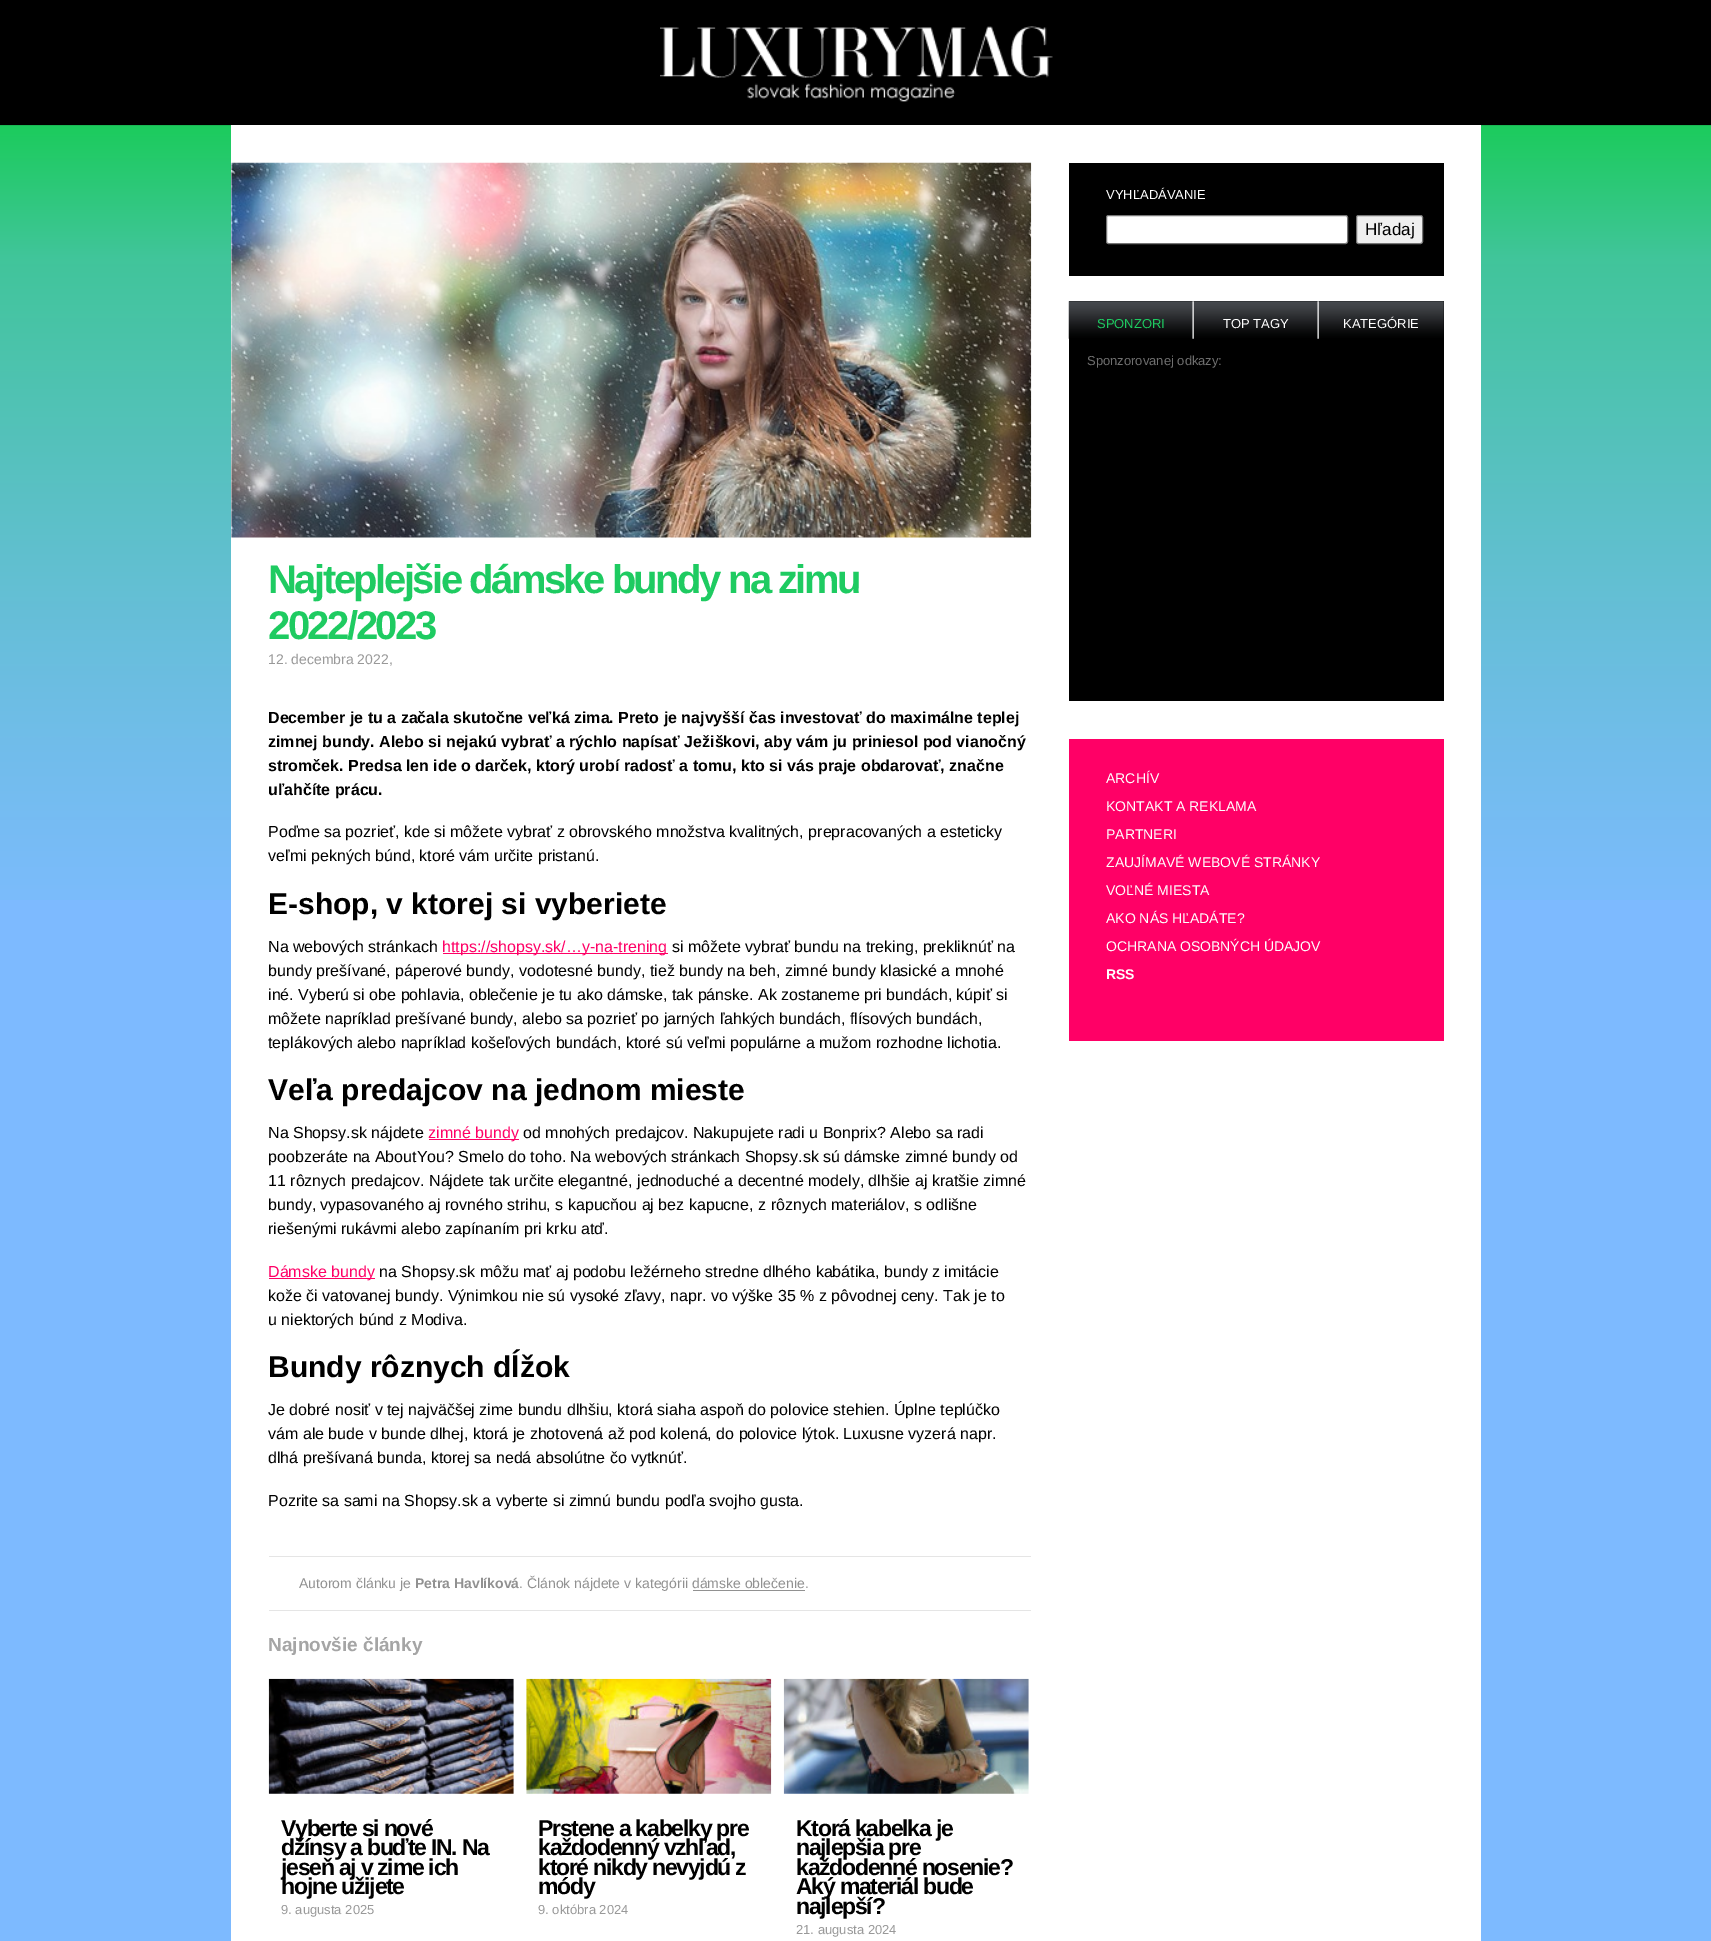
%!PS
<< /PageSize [1711 1941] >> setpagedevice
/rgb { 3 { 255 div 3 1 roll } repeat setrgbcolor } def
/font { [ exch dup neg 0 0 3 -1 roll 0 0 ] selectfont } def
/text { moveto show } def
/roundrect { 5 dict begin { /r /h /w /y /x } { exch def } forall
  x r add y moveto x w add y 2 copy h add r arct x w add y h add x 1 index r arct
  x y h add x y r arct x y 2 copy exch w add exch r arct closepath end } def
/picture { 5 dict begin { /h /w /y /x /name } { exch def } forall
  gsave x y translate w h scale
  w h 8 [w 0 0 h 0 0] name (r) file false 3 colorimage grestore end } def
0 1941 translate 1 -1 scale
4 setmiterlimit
125 186 255 rgb
0 0 1711 1941 rectfill
(img_01.rgb) 0 125 1711 775 picture
0 0 0 rgb
0 0 1711 125 rectfill
(img_02.rgb) 660 26 393 76 picture
255 255 255 rgb
231 125 1250 1816 rectfill
(img_03.rgb) 231 162 801 376 picture
255 0 102 rgb
443 953 225 1 rectfill
429 1139 90 1 rectfill
269 1278 106 1 rectfill
229 229 229 rgb
269 1556 762 1 rectfill
269 1610 762 1 rectfill
145 145 145 rgb
693 1590 112 1 rectfill
(img_04.rgb) 268 1678 246 116 picture
(img_05.rgb) 526 1678 246 116 picture
(img_06.rgb) 783 1678 246 116 picture
0 0 0 rgb
1069 163 375 113 rectfill
255 255 255 rgb
1106.5 215.5 241 28 2 roundrect gsave fill grestore
118 118 118 rgb
stroke
239 239 239 rgb
1356.5 215.5 66 28 2 roundrect gsave fill grestore
118 118 118 rgb
stroke
0 0 0 rgb
1069 301 375 400 rectfill
(img_07.rgb) 1068 301 376 38 picture
(img_08.rgb) 1192 301 2 38 picture
(img_08.rgb) 1317 301 2 38 picture
255 0 102 rgb
1069 739 375 302 rectfill
/LiberationSans-Bold 40 font
30 203 97 rgb
268 593 moveto -2.5 0 (Najteplejšie dámske bundy na zimu) ashow
268 639 moveto -2.5 0 (2022/2023) ashow
/LiberationSans-Regular 14 font
153 153 153 rgb
(12. decembra 2022,) 268 664 text
/LiberationSans-Bold 16 font
0 0 0 rgb
(December je tu a začala skutočne veľká zima. Preto je najvyšší čas investovať do maximálne teplej) 268 723 text
(zimnej bundy. Alebo si nejakú vybrať a rýchlo napísať Ježiškovi, aby vám ju priniesol pod vianočný) 268 747 text
(stromček. Predsa len ide o darček, ktorý urobí radosť a tomu, kto si vás praje obdarovať, značne) 268 771 text
(uľahčíte prácu.) 268 795 text
/LiberationSans-Regular 16 font
(Poďme sa pozrieť, kde si môžete vybrať z obrovského množstva kvalitných, prepracovaných a esteticky) 268 837 text
(veľmi pekných búnd, ktoré vám určite pristanú.) 268 861 text
/LiberationSans-Bold 30 font
(E-shop, v ktorej si vyberiete) 268 914 text
/LiberationSans-Regular 16 font
(Na webových stránkach) 268 952 text
255 0 102 rgb
(https://shopsy.sk/…y-na-trening) 442 952 text
0 0 0 rgb
(si môžete vybrať bundu na treking, prekliknúť na) 672 952 text
(bundy prešívané, páperové bundy, vodotesné bundy, tiež bundy na beh, zimné bundy klasické a mnohé) 268 976 text
(iné. Vyberú si obe pohlavia, oblečenie je tu ako dámske, tak pánske. Ak zostaneme pri bundách, kúpiť si) 268 1000 text
(môžete napríklad prešívané bundy, alebo sa pozrieť po jarných ľahkých bundách, flísových bundách,) 268 1024 text
(teplákových alebo napríklad košeľových bundách, ktoré sú veľmi populárne a mužom rozhodne lichotia.) 268 1048 text
/LiberationSans-Bold 30 font
(Veľa predajcov na jednom mieste) 268 1100 text
/LiberationSans-Regular 16 font
(Na Shopsy.sk nájdete) 268 1138 text
255 0 102 rgb
(zimné bundy) 428 1138 text
0 0 0 rgb
(od mnohých predajcov. Nakupujete radi u Bonprix? Alebo sa radi) 523 1138 text
(poobzeráte na AboutYou? Smelo do toho. Na webových stránkach Shopsy.sk sú dámske zimné bundy od) 268 1162 text
(11 rôznych predajcov. Nájdete tak určite elegantné, jednoduché a decentné modely, dlhšie aj kratšie zimné) 268 1186 text
(bundy, vypasovaného aj rovného strihu, s kapucňou aj bez kapucne, z rôznych materiálov, s odlišne) 268 1210 text
(riešenými rukávmi alebo zapínaním pri krku atď.) 268 1234 text
255 0 102 rgb
(Dámske bundy) 268 1277 text
0 0 0 rgb
(na Shopsy.sk môžu mať aj podobu ležérneho stredne dlhého kabátika, bundy z imitácie) 379 1277 text
(kože či vatovanej bundy. Výnimkou nie sú vysoké zľavy, napr. vo výške 35 % z pôvodnej ceny. Tak je to) 268 1301 text
(u niektorých búnd z Modiva.) 268 1325 text
/LiberationSans-Bold 30 font
(Bundy rôznych dĺžok) 268 1377 text
/LiberationSans-Regular 16 font
(Je dobré nosiť v tej najväčšej zime bundu dlhšiu, ktorá siaha aspoň do polovice stehien. Úplne teplúčko) 268 1415 text
(vám ale bude v bunde dlhej, ktorá je zhotovená až pod kolená, do polovice lýtok. Luxusne vyzerá napr.) 268 1439 text
(dlhá prešívaná bunda, ktorej sa nedá absolútne čo vytknúť.) 268 1463 text
(Pozrite sa sami na Shopsy.sk a vyberte si zimnú bundu podľa svojho gusta.) 268 1506 text
/LiberationSans-Regular 14 font
145 145 145 rgb
(Autorom článku je) 299 1588 text
/LiberationSans-Bold 14 font
(Petra Havlíková) 415 1588 text
/LiberationSans-Regular 14 font
(. Článok nájdete v kategórii dámske oblečenie.) 519 1588 text
/LiberationSans-Bold 19 font
165 165 165 rgb
(Najnovšie články) 268 1651 text
/LiberationSans-Bold 23 font
0 0 0 rgb
281 1836 moveto -1.25 0 (Vyberte si nové) ashow
281 1855 moveto -1.25 0 (džínsy a buďte IN. Na) ashow
281 1875 moveto -1.25 0 (jeseň aj v zime ich) ashow
281 1894 moveto -1.25 0 (hojne užijete) ashow
/LiberationSans-Regular 13 font
153 153 153 rgb
(9. augusta 2025) 281 1914 text
/LiberationSans-Bold 23 font
0 0 0 rgb
538 1836 moveto -1.25 0 (Prstene a kabelky pre) ashow
538 1855 moveto -1.25 0 (každodenný vzhľad,) ashow
538 1875 moveto -1.25 0 (ktoré nikdy nevyjdú z) ashow
538 1894 moveto -1.25 0 (módy) ashow
/LiberationSans-Regular 13 font
153 153 153 rgb
(9. októbra 2024) 538 1914 text
/LiberationSans-Bold 23 font
0 0 0 rgb
796 1836 moveto -1.25 0 (Ktorá kabelka je) ashow
796 1855 moveto -1.25 0 (najlepšia pre) ashow
796 1875 moveto -1.25 0 (každodenné nosenie?) ashow
796 1894 moveto -1.25 0 (Aký materiál bude) ashow
796 1914 moveto -1.25 0 (najlepší?) ashow
/LiberationSans-Regular 13 font
153 153 153 rgb
(21. augusta 2024) 796 1934 text
255 255 255 rgb
(VYHĽADÁVANIE) 1106 199 text
/LiberationSans-Regular 17 font
0 0 0 rgb
(Hľadaj) 1365 235 text
/LiberationSans-Regular 13 font
30 203 97 rgb
(SPONZORI) 1097 328 text
255 255 255 rgb
(TOP TAGY) 1223 328 text
(KATEGÓRIE) 1343 328 text
111 111 111 rgb
(Sponzorovanej odkazy:) 1087 365 text
/LiberationSans-Regular 14 font
255 255 255 rgb
(ARCHÍV) 1106 783 text
(KONTAKT A REKLAMA) 1106 811 text
(PARTNERI) 1106 839 text
(ZAUJÍMAVÉ WEBOVÉ STRÁNKY) 1106 867 text
(VOĽNÉ MIESTA) 1106 895 text
(AKO NÁS HĽADÁTE?) 1106 923 text
(OCHRANA OSOBNÝCH ÚDAJOV) 1106 951 text
/LiberationSans-Bold 14 font
(RSS) 1106 979 text
showpage
